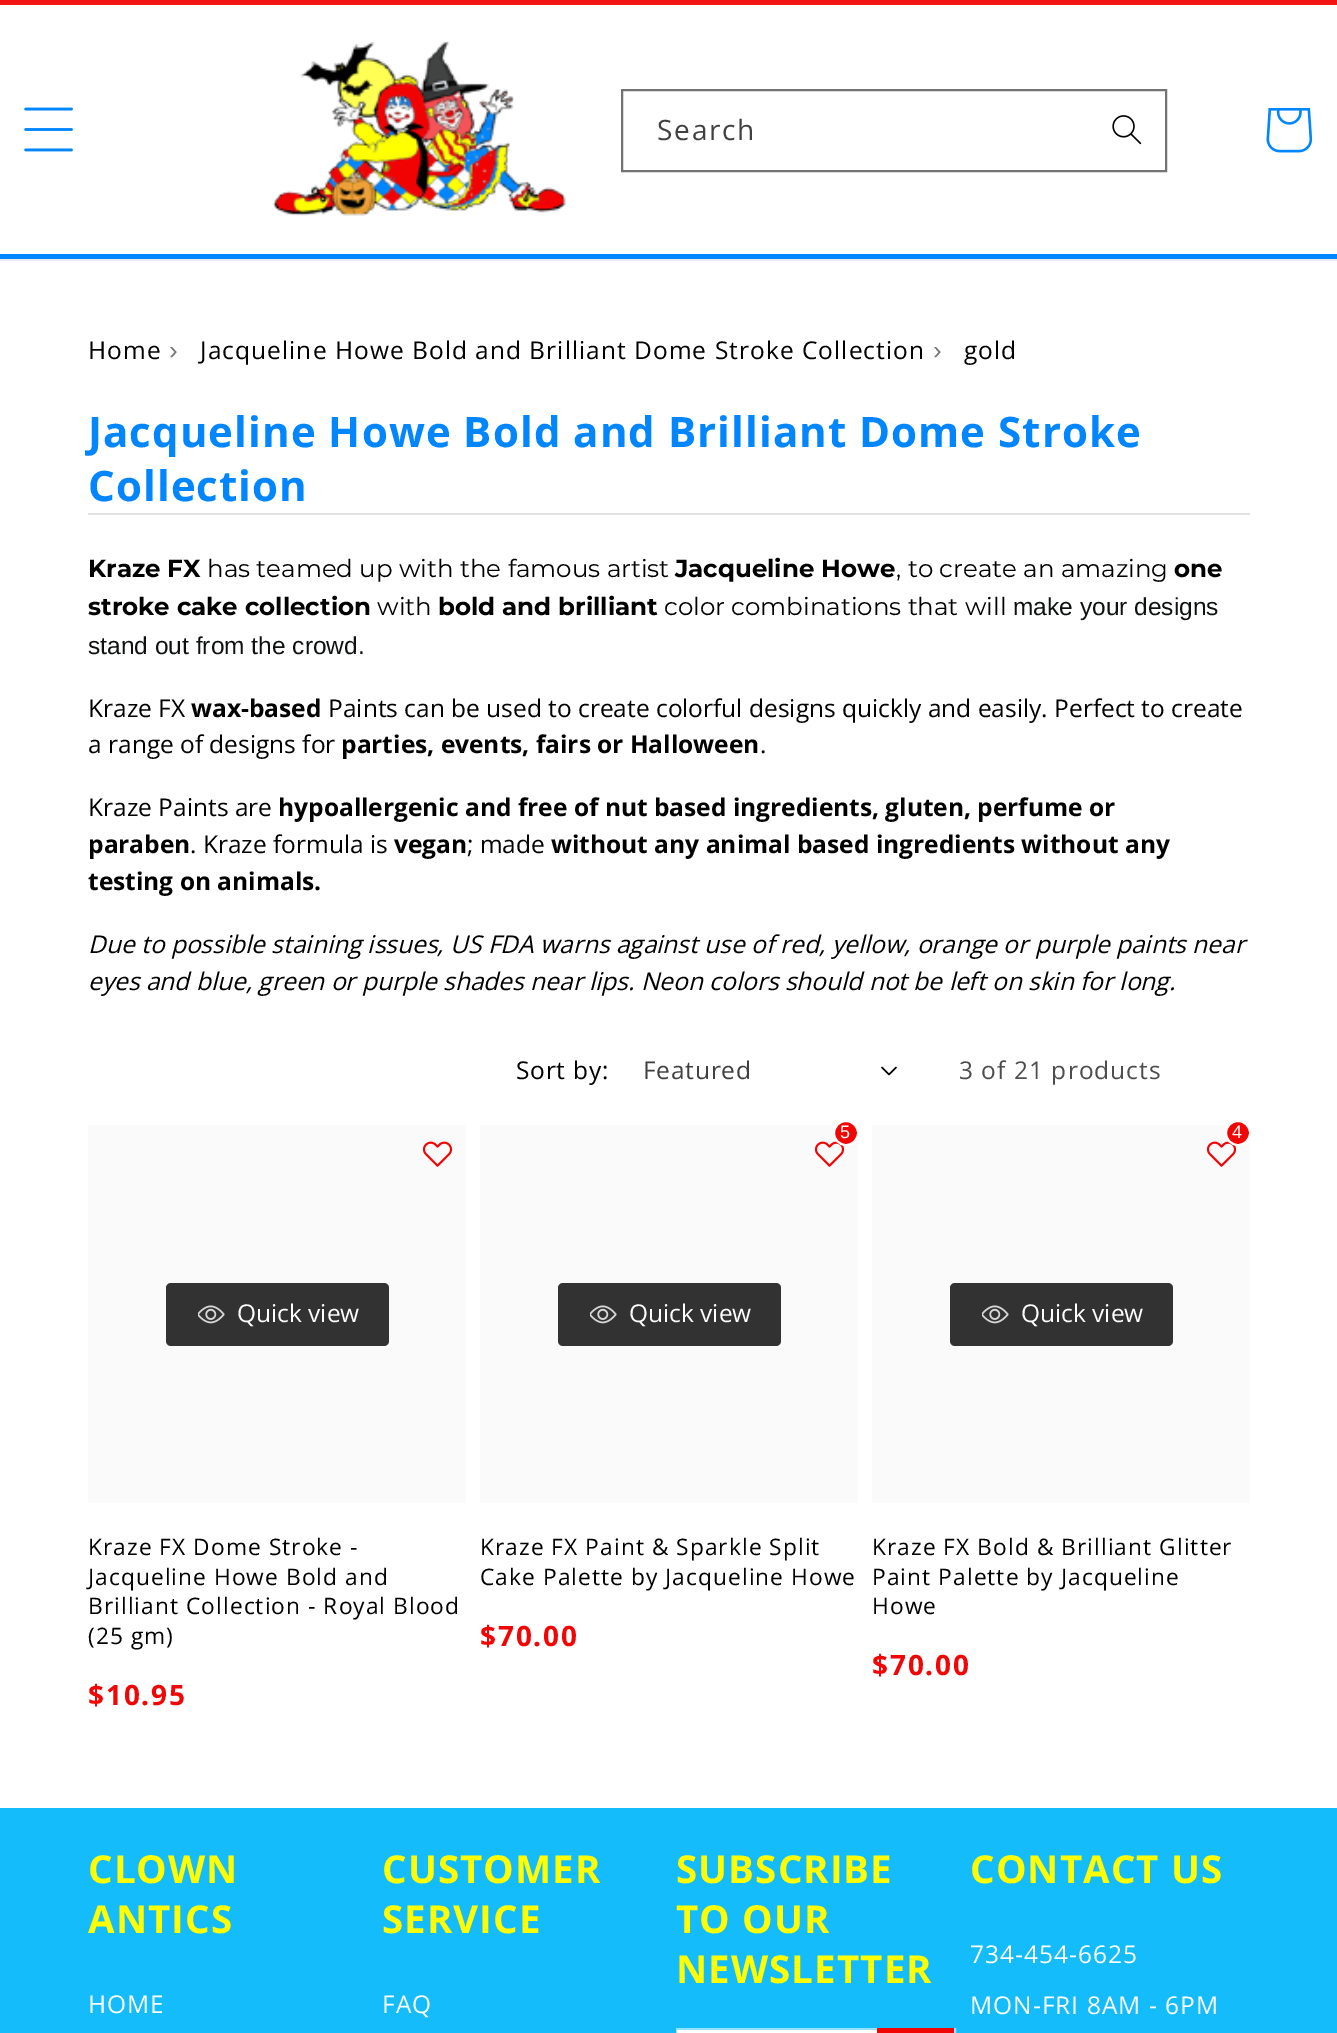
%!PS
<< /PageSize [1337 2033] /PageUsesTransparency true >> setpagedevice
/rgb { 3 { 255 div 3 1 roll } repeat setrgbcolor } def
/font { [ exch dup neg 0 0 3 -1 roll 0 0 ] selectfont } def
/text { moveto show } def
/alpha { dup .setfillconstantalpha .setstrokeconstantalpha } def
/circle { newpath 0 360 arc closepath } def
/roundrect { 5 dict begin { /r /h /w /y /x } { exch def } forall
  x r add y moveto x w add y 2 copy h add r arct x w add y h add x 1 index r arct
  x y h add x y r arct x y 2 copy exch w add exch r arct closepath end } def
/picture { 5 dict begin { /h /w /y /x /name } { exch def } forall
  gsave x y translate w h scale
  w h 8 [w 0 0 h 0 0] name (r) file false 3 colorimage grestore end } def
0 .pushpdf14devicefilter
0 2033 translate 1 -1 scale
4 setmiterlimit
255 255 255 rgb
0 0 1337 2033 rectfill
242 25 25 rgb
0 4 1337 1 rectfill
242 20 20 rgb
0 0 1337 4 rectfill
235 235 235 rgb
0 259 1337 2 rectfill
1 134 255 rgb
0 254 1337 5 rectfill
(img_01.rgb) 24 107 49 45 picture
(img_02.rgb) 272 41 294 175 picture
(img_03.rgb) 1112 115 30 30 picture
115 115 115 rgb
2 setlinewidth
622 90 544 81 rectstroke
(img_04.rgb) 1266 108 47 45 picture
226 226 226 rgb
88 513 1162 2 rectfill
(img_05.rgb) 881 1066 16 10 picture
250 250 250 rgb
88 1125 378 378 rectfill
(img_06.rgb) 422 1141 31 26 picture
50 50 50 rgb
166 1283 223 63 5 roundrect fill
(img_07.rgb) 198 1305 27 19 picture
250 250 250 rgb
480 1125 378 378 rectfill
(img_06.rgb) 814 1141 31 26 picture
241 5 5 rgb
846 1133 12 circle gsave fill grestore
255 255 255 rgb
stroke
50 50 50 rgb
558 1283 223 63 5 roundrect fill
(img_07.rgb) 590 1305 27 19 picture
250 250 250 rgb
872 1125 378 378 rectfill
(img_06.rgb) 1206 1141 31 26 picture
241 5 5 rgb
1238 1133 12 circle gsave fill grestore
255 255 255 rgb
stroke
50 50 50 rgb
950 1283 223 63 5 roundrect fill
(img_07.rgb) 982 1305 27 19 picture
20 188 252 rgb
0 1808 1337 225 rectfill
255 255 255 rgb
677 2030 200 3 rectfill
0.55 alpha
677 2029 278 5 rectstroke
1 alpha
241 5 5 rgb
877 2028 77 5 rectfill
/OpenSans-Regular 28 font
64 64 64 rgb
657 140 moveto 1.75 0 (Search) ashow
/OpenSans-Regular 24.5 font
0 0 0 rgb
88 359 moveto 1.05 0 (Home) ashow
/LiberationSans-Regular 26 font
118 118 118 rgb
169 359 moveto 1.05 0 (›) ashow
/OpenSans-Regular 24.5 font
0 0 0 rgb
200 359 moveto 1.05 0 (Jacqueline Howe Bold and Brilliant Dome Stroke Collection) ashow
/LiberationSans-Regular 26 font
118 118 118 rgb
933 359 moveto 1.05 0 (›) ashow
/OpenSans-Regular 24.5 font
0 0 0 rgb
964 359 moveto 1.05 0 (gold) ashow
/OpenSans-Bold 42 font
1 134 255 rgb
88 447 moveto 1.05 0 (Jacqueline Howe Bold and Brilliant Dome Stroke) ashow
88 501 moveto 1.05 0 (Collection) ashow
/Montserrat-Bold 24.5 font
0 0 0 rgb
(Kraze FX) 88 577 text
/Montserrat-Regular 24.5 font
(has teamed up with the famous artist) 207 577 text
/Montserrat-Bold 24.5 font
(Jacqueline Howe) 675 577 text
/Montserrat-Regular 24.5 font
(, to create an amazing) 896 577 text
/Montserrat-Bold 24.5 font
(one) 1174 577 text
(stroke cake collection) 88 615 text
/Montserrat-Regular 24.5 font
(with) 377 615 text
/Montserrat-Bold 24.5 font
(bold and brilliant) 438 615 text
/Montserrat-Regular 24.5 font
(color combinations that will) 664 615 text
/LiberationSans-Regular 24.5 font
15 17 17 rgb
(make your designs) 1013 615 text
(stand out from the crowd.) 88 654 text
/OpenSans-Regular 24.5 font
0 0 0 rgb
(Kraze FX) 88 717 text
/OpenSans-Bold 24.5 font
(wax-based) 191 717 text
/OpenSans-Regular 24.5 font
(Paints can be used to create colorful designs quickly and easily. Perfect to create) 328 717 text
(a range of designs for) 88 753 text
/OpenSans-Bold 24.5 font
(parties, events, fairs or Halloween) 341 753 text
/OpenSans-Regular 24.5 font
(.) 760 753 text
(Kraze Paints are) 88 816 text
/OpenSans-Bold 24.5 font
(hypoallergenic and free of nut based ingredients, gluten, perfume or) 278 816 text
(paraben) 88 853 text
/OpenSans-Regular 24.5 font
(. Kraze formula is) 190 853 text
/OpenSans-Bold 24.5 font
(vegan) 394 853 text
/OpenSans-Regular 24.5 font
(; made) 467 853 text
/OpenSans-Bold 24.5 font
(without any animal based ingredients without any) 551 853 text
(testing on animals.) 88 890 text
/OpenSans-Italic 24.5 font
(Due to possible staining issues, US FDA warns against use of red, yellow, orange or purple paints near) 88 953 text
(eyes and blue, green or purple shades near lips. Neon colors should not be left on skin for long.) 88 990 text
/OpenSans-Regular 24.5 font
516 1079 moveto 0.75 0 (Sort by:) ashow
64 64 64 rgb
643 1079 moveto 0.75 0 (Featured) ashow
77 77 77 rgb
959 1079 moveto 1.05 0 (3 of 21 products) ashow
255 255 255 rgb
(Quick view) 237 1322 text
/OpenSans-Regular 22.75 font
0 0 0 rgb
88 1555 moveto 1.05 0 (Kraze FX Dome Stroke -) ashow
88 1585 moveto 1.05 0 (Jacqueline Howe Bold and) ashow
88 1614 moveto 1.05 0 (Brilliant Collection - Royal Blood) ashow
88 1644 moveto 1.05 0 (\(25 gm\)) ashow
/OpenSans-Bold 28 font
241 5 5 rgb
88 1705 moveto 1.75 0 ($10.95) ashow
/LiberationSans-Regular 18 font
255 255 255 rgb
(5) 840 1138 text
/OpenSans-Regular 24.5 font
(Quick view) 629 1322 text
/OpenSans-Regular 22.75 font
0 0 0 rgb
480 1555 moveto 1.05 0 (Kraze FX Paint & Sparkle Split) ashow
480 1585 moveto 1.05 0 (Cake Palette by Jacqueline Howe) ashow
/OpenSans-Bold 28 font
241 5 5 rgb
480 1646 moveto 1.75 0 ($70.00) ashow
/LiberationSans-Regular 18 font
255 255 255 rgb
(4) 1232 1138 text
/OpenSans-Regular 24.5 font
(Quick view) 1021 1322 text
/OpenSans-Regular 22.75 font
0 0 0 rgb
872 1555 moveto 1.05 0 (Kraze FX Bold & Brilliant Glitter) ashow
872 1585 moveto 1.05 0 (Paint Palette by Jacqueline) ashow
872 1614 moveto 1.05 0 (Howe) ashow
/OpenSans-Bold 28 font
241 5 5 rgb
872 1675 moveto 1.75 0 ($70.00) ashow
/OpenSans-Bold 38.5 font
255 255 1 rgb
88 1883 moveto 1.05 0 (CLOWN) ashow
88 1933 moveto 1.05 0 (ANTICS) ashow
/OpenSans-Regular 24.5 font
255 255 255 rgb
88 2013 moveto 1.05 0 (HOME) ashow
/OpenSans-Bold 38.5 font
255 255 1 rgb
382 1883 moveto 1.05 0 (CUSTOMER) ashow
382 1933 moveto 1.05 0 (SERVICE) ashow
/OpenSans-Regular 24.5 font
255 255 255 rgb
382 2013 moveto 1.05 0 (FAQ) ashow
/OpenSans-Bold 38.5 font
255 255 1 rgb
676 1883 moveto 1.05 0 (SUBSCRIBE) ashow
676 1933 moveto 1.05 0 (TO OUR) ashow
676 1983 moveto 1.05 0 (NEWSLETTER) ashow
970 1883 moveto 1.05 0 (CONTACT US) ashow
/OpenSans-Regular 24.5 font
255 255 255 rgb
970 1963 moveto 1.05 0 (734-454-6625) ashow
970 2014 moveto 1.05 0 (MON-FRI 8AM - 6PM) ashow
.poppdf14devicefilter showpage
